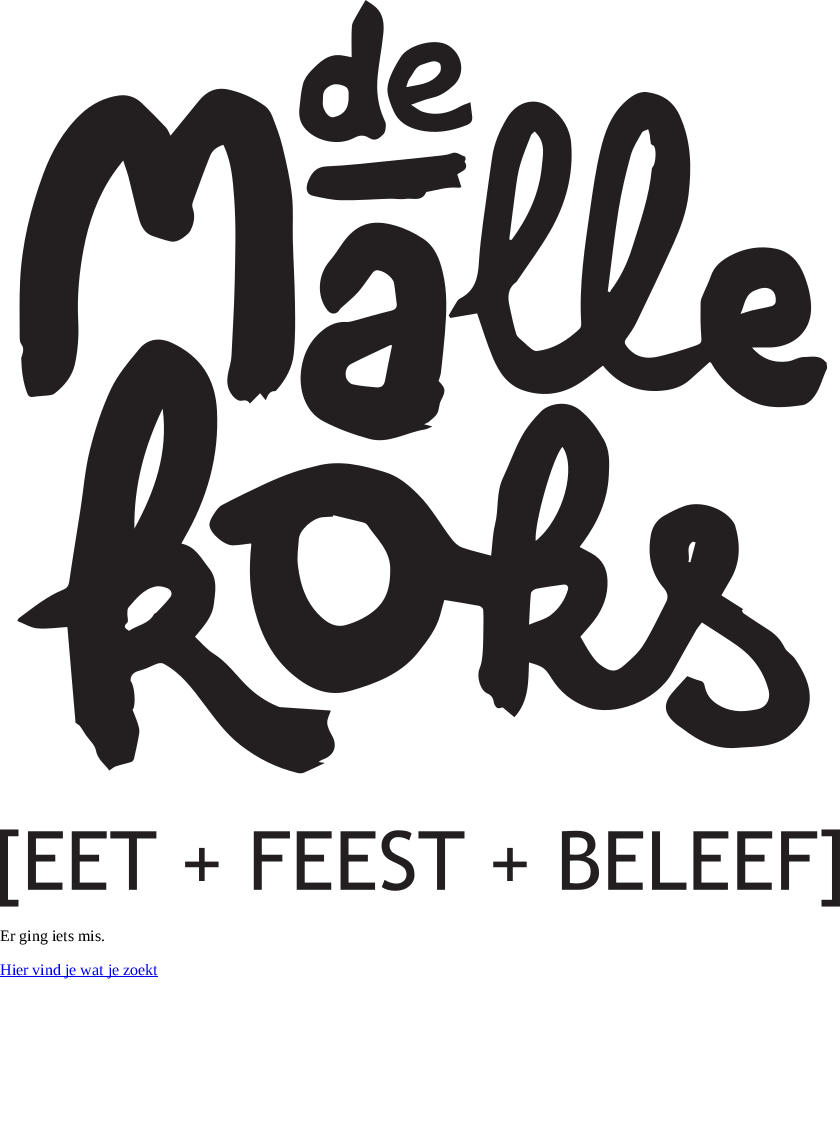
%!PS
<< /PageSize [840 1131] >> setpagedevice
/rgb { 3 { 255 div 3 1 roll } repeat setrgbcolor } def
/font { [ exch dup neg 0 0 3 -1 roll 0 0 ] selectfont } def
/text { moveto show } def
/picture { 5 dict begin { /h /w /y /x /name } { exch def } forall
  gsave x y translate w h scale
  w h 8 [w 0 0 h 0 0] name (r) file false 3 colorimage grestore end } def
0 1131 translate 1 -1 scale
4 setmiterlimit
255 255 255 rgb
0 0 840 1131 rectfill
(img_01.rgb) 0 0 840 907 picture
0 0 238 rgb
0 976 158 1 rectfill
/LiberationSerif-Regular 16 font
0 0 0 rgb
(Er ging iets mis.) 0 941 text
0 0 238 rgb
(Hier vind je wat je zoekt) 0 975 text
showpage
